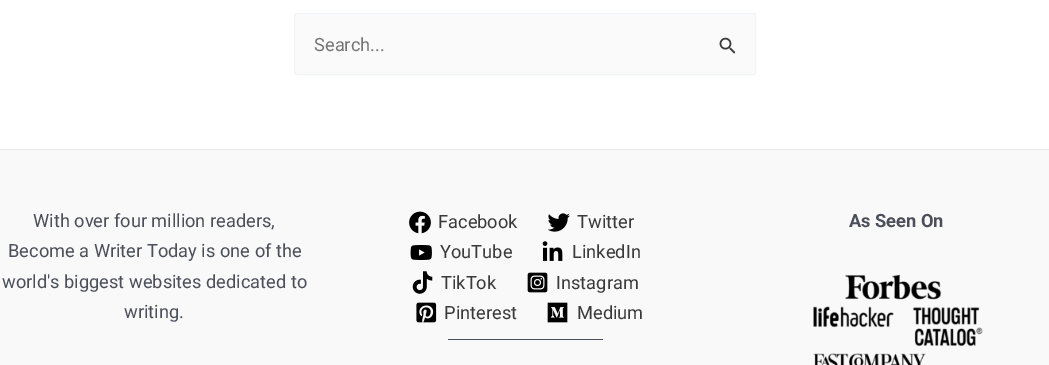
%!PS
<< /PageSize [1049 365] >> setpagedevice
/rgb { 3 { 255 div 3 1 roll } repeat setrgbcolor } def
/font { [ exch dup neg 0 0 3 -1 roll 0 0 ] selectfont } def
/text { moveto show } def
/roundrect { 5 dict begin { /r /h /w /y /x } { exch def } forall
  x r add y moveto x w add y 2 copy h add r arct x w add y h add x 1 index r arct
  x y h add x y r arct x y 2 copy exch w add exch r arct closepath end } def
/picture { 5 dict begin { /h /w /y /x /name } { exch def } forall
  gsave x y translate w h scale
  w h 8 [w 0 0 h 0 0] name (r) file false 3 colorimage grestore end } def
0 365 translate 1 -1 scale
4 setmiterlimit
255 255 255 rgb
0 0 1049 365 rectfill
250 250 250 rgb
294.5 13.5 461 61 2 roundrect gsave fill grestore
242 245 247 rgb
stroke
(img_01.rgb) 719 37 16 17 picture
249 249 249 rgb
0 150 1049 215 rectfill
230 230 230 rgb
0 149 1049 1 rectfill
(img_02.rgb) 409 211 22 23 picture
(img_03.rgb) 548 213 22 19 picture
(img_04.rgb) 410 245 22 15 picture
(img_05.rgb) 542 241 21 20 picture
(img_06.rgb) 412 271 21 23 picture
(img_07.rgb) 527 272 21 21 picture
(img_08.rgb) 416 302 21 21 picture
(img_09.rgb) 547 302 21 21 picture
75 79 88 rgb
448 339 155 1 rectfill
(img_10.rgb) 813 274 170 91 picture
/Roboto-Regular 18.25 font
117 117 117 rgb
(Search...) 314 51 text
75 79 88 rgb
(With over four million readers,) 33 227 text
(Become a Writer Today is one of the) 8 257 text
(world's biggest websites dedicated to) 2 288 text
(writing.) 124 318 text
58 58 58 rgb
(Facebook) 438 228 text
(Twitter) 577 228 text
(YouTube) 440 258 text
(LinkedIn) 572 258 text
(TikTok) 441 289 text
(Instagram) 556 289 text
(Pinterest) 444 319 text
(Medium) 577 319 text
/Roboto-Bold 18.25 font
75 79 88 rgb
(As Seen On) 849 227 text
showpage
